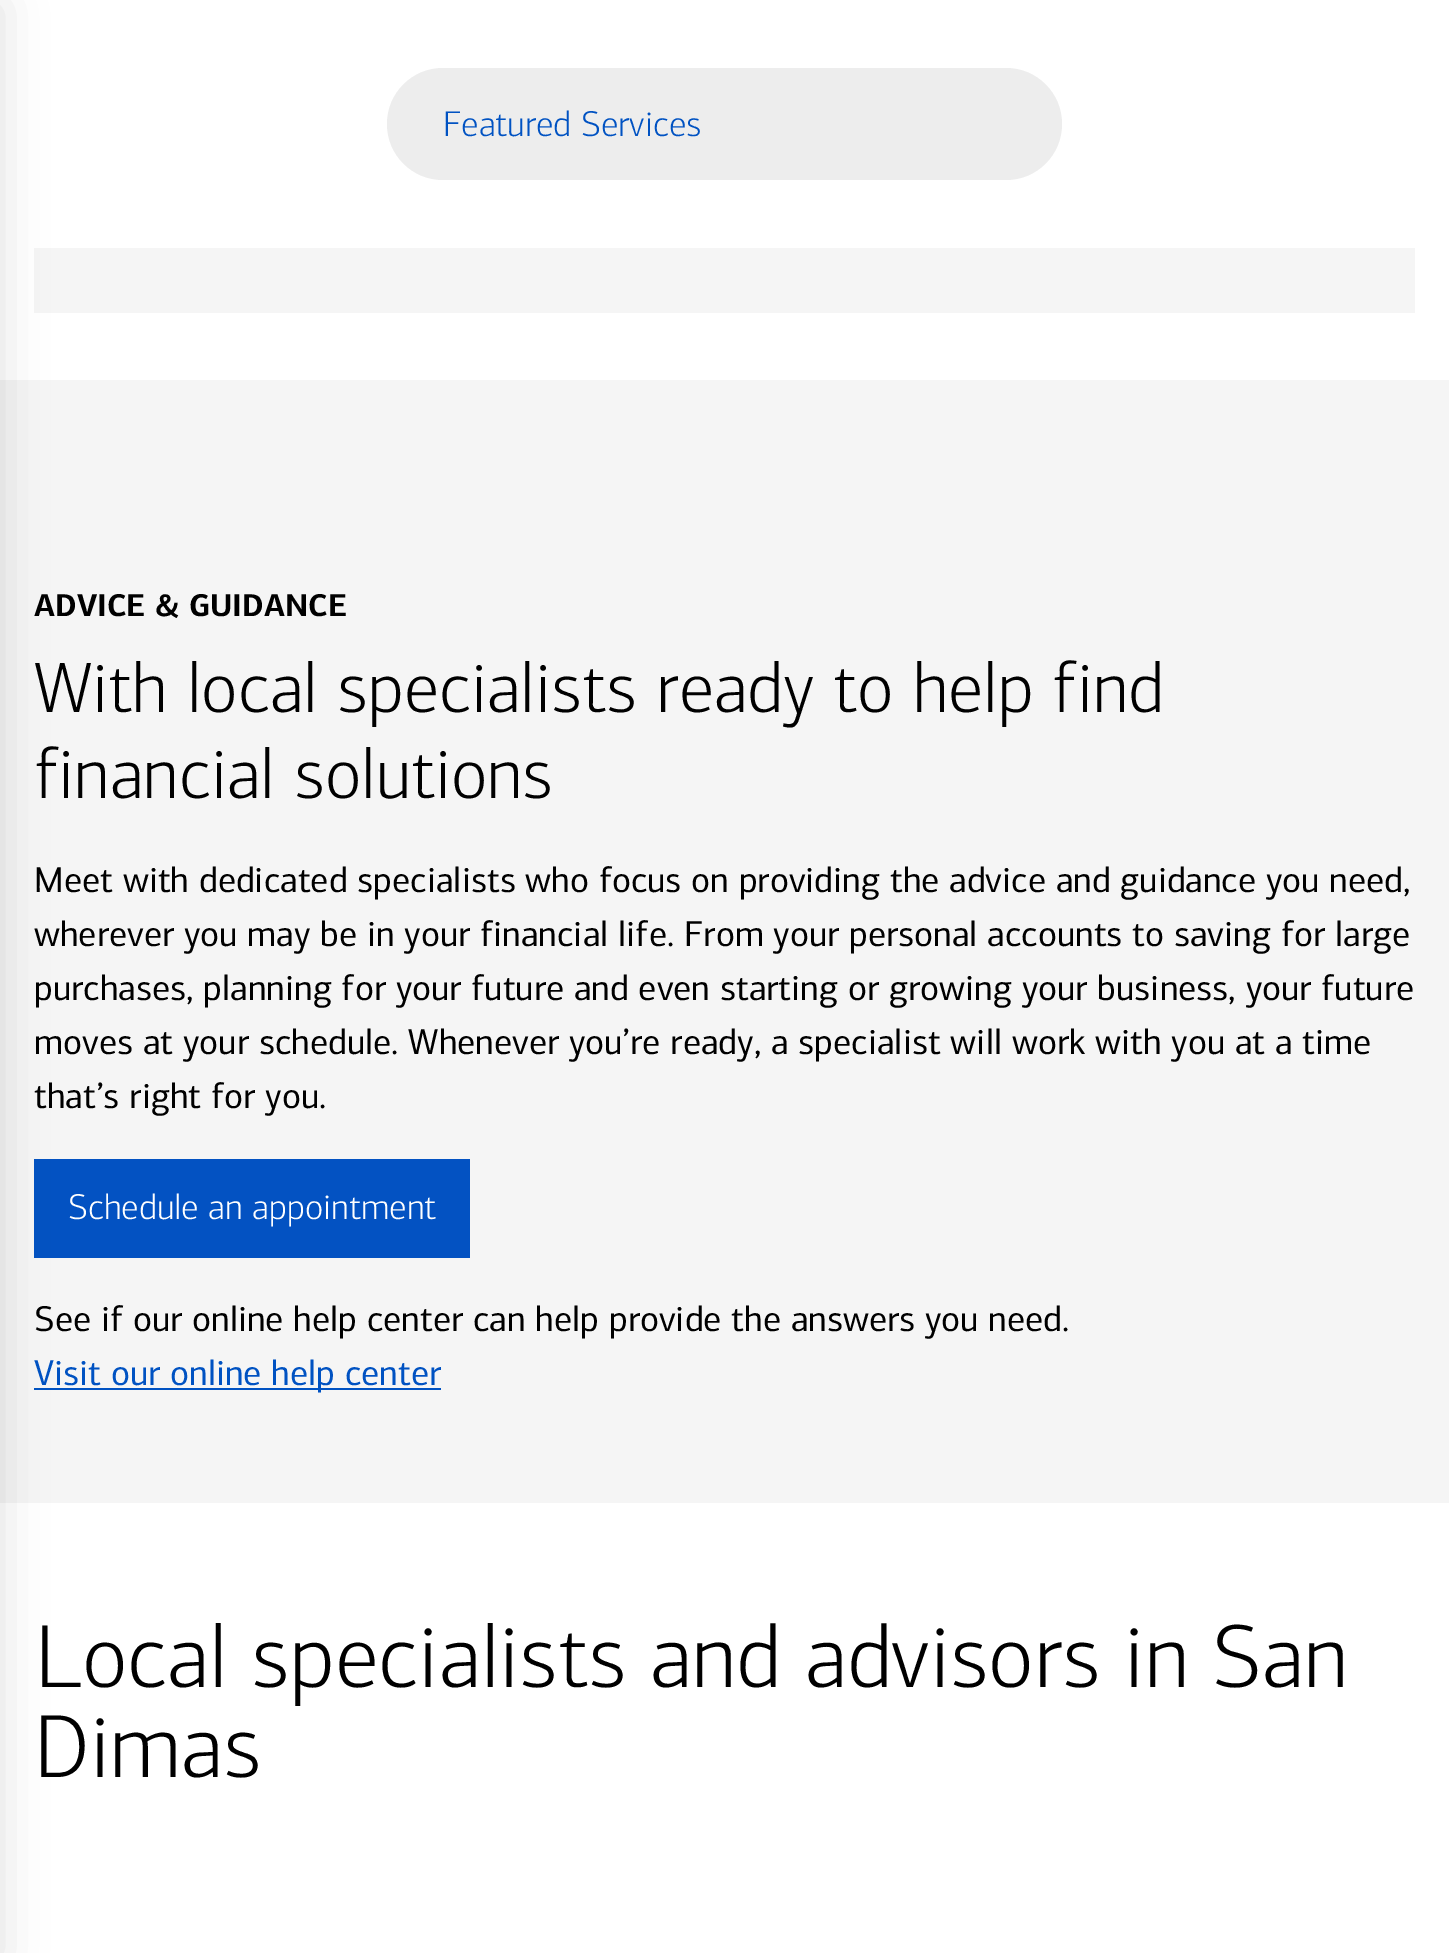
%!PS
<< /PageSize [1449 1953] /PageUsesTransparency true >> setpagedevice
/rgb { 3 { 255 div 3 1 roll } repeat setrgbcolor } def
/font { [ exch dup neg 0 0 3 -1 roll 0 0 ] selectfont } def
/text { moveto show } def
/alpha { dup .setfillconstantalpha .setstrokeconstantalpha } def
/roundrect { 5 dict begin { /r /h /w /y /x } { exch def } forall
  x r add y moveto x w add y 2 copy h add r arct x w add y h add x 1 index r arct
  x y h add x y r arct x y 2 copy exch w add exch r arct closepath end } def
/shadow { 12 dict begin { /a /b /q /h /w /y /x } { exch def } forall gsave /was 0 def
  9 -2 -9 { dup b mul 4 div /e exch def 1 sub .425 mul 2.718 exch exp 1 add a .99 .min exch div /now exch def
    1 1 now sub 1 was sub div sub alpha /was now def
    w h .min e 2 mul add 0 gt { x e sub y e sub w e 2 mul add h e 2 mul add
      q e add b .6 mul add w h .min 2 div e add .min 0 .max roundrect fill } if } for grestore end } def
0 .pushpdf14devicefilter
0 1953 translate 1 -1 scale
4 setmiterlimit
255 255 255 rgb
0 0 1449 1953 rectfill
245 245 245 rgb
34 248 1381 65 rectfill
0 380 1449 1123 rectfill
3 82 194 rgb
34 1159 436 99 rectfill
0 82 194 rgb
34 1388 407 2 rectfill
0 0 0 rgb
-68 5 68 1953 0 22.5 0.12 shadow
237 237 237 rgb
387 68 675 112 56 roundrect fill
/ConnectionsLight-Light 36 font
0 82 194 rgb
(Featured Services) 443 136 text
/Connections-Bold 31.5 font
0 0 0 rgb
(ADVICE & GUIDANCE) 34 616 text
/ConnectionsLight-Light 72 font
(With local specialists ready to help find) 34 712 text
(financial solutions) 34 798 text
/Connections-Regular 36 font
(Meet with dedicated specialists who focus on providing the advice and guidance you need,) 34 892 text
(wherever you may be in your financial life. From your personal accounts to saving for large) 34 946 text
(purchases, planning for your future and even starting or growing your business, your future) 34 1000 text
(moves at your schedule. Whenever you’re ready, a specialist will work with you at a time) 34 1054 text
(that’s right for you.) 34 1108 text
/ConnectionsLight-Light 36 font
255 255 255 rgb
(Schedule an appointment) 68 1219 text
/Connections-Regular 36 font
0 0 0 rgb
(See if our online help center can help provide the answers you need.) 34 1331 text
0 82 194 rgb
(Visit our online help center) 34 1385 text
/ConnectionsLight-Light 90 font
0 0 0 rgb
(Local specialists and advisors in San) 34 1687 text
(Dimas) 34 1777 text
.poppdf14devicefilter showpage
